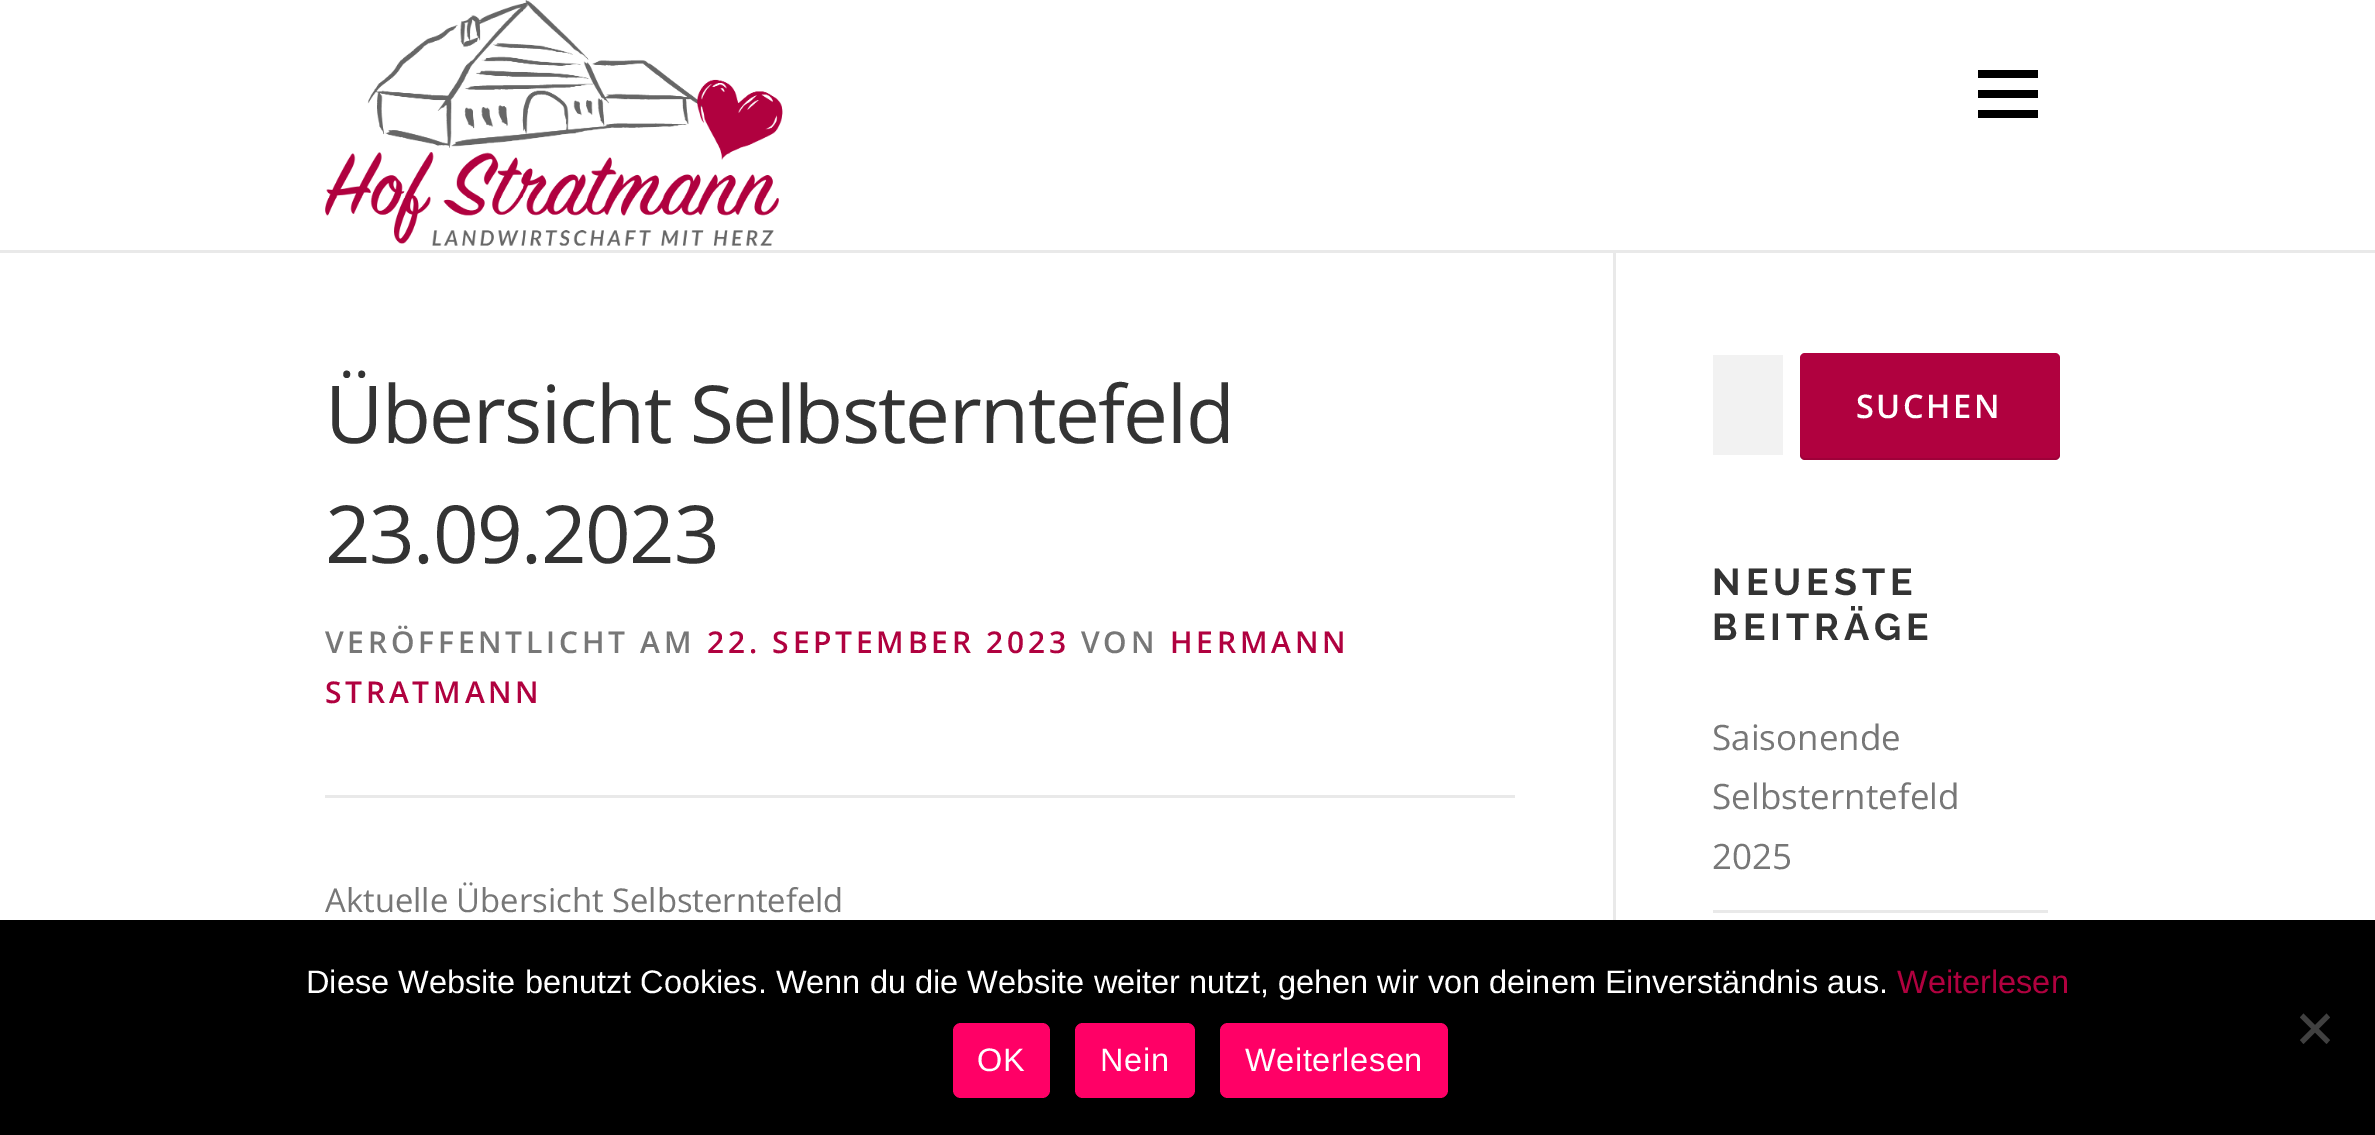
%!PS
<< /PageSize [2375 1135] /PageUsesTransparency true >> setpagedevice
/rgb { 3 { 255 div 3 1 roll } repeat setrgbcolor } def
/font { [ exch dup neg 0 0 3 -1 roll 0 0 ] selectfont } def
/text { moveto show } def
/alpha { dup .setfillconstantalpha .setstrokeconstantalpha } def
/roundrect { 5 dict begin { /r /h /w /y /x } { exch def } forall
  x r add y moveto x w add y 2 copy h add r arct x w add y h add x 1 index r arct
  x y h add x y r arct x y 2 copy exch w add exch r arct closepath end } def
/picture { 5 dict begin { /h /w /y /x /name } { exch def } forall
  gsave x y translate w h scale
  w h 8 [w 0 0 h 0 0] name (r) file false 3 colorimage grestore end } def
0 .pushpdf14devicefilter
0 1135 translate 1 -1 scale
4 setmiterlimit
255 255 255 rgb
0 0 2375 1135 rectfill
(img_01.rgb) 325 0 458 246 picture
0 0 0 rgb
1978 90 60 8 rectfill
1978 70 60 8 rectfill
1978 110 60 8 rectfill
233 233 233 rgb
0 250 2375 3 rectfill
1613 253 3 667 rectfill
325 795 1190 3 rectfill
242 242 242 rgb
1713 355 70 100 rectfill
176 1 63 rgb
1800 353 260 107 5 roundrect fill
0.1 alpha
0 0 0 rgb
1800 452 moveto 0 3 rlineto 0 3 2 5 5 5 rcurveto 250 0 rlineto 3 0 5 -2 5 -5 rcurveto 0 -3 rlineto 0 3 -2 6 -5 6 rcurveto -250 0 rlineto -3 0 -5 -3 -5 -6 rcurveto closepath fill
1 alpha
233 233 233 rgb
1713 910 335 3 rectfill
0 0 0 rgb
0 920 2375 215 rectfill
64 64 64 rgb
2326.5 1013.5 moveto 3.5 4 rlineto -26.5 26.5 rlineto -3.5 -4 rlineto closepath fill
2300 1017.5 moveto 3.5 -4 rlineto 26.5 26.5 rlineto -3.5 4 rlineto closepath fill
255 0 102 rgb
953 1023 97 75 8 roundrect fill
1075 1023 120 75 8 roundrect fill
1220 1023 228 75 8 roundrect fill
/OpenSans-Regular 80 font
51 51 51 rgb
325 443 moveto -1.5 0 (Übersicht Selbsterntefeld) ashow
325 563 moveto -1.5 0 (23.09.2023) ashow
/OpenSans-SemiBold 30 font
119 119 119 rgb
325 653 moveto 3.75 0 (VERÖFFENTLICHT AM) ashow
176 1 63 rgb
707 653 moveto 3.75 0 (22. SEPTEMBER 2023) ashow
119 119 119 rgb
1081 653 moveto 3.75 0 (VON) ashow
176 1 63 rgb
1170 653 moveto 3.75 0 (HERMANN) ashow
325 703 moveto 3.75 0 (STRATMANN) ashow
/OpenSans-Regular 32.75 font
119 119 119 rgb
(Aktuelle Übersicht Selbsterntefeld) 325 912 text
/OpenSans-SemiBold 32.5 font
255 255 255 rgb
1856 418 moveto 2.5 0 (SUCHEN) ashow
/Raleway-Bold 37.5 font
51 51 51 rgb
1712 595 moveto 5 0 (NEUESTE) ashow
1712 640 moveto 5 0 (BEITRÄGE) ashow
/OpenSans-Regular 35 font
119 119 119 rgb
(Saisonende) 1712 750 text
(Selbsterntefeld) 1712 809 text
(2025) 1712 869 text
/LiberationSans-Regular 32.5 font
255 255 255 rgb
(Diese Website benutzt Cookies. Wenn du die Website weiter nutzt, gehen wir von deinem Einverständnis aus.) 306 993 text
176 1 63 rgb
(Weiterlesen) 1897 993 text
255 255 255 rgb
977 1071 moveto 0.6 0 (OK) ashow
1100 1071 moveto 0.6 0 (Nein) ashow
1245 1071 moveto 0.6 0 (Weiterlesen) ashow
.poppdf14devicefilter showpage
